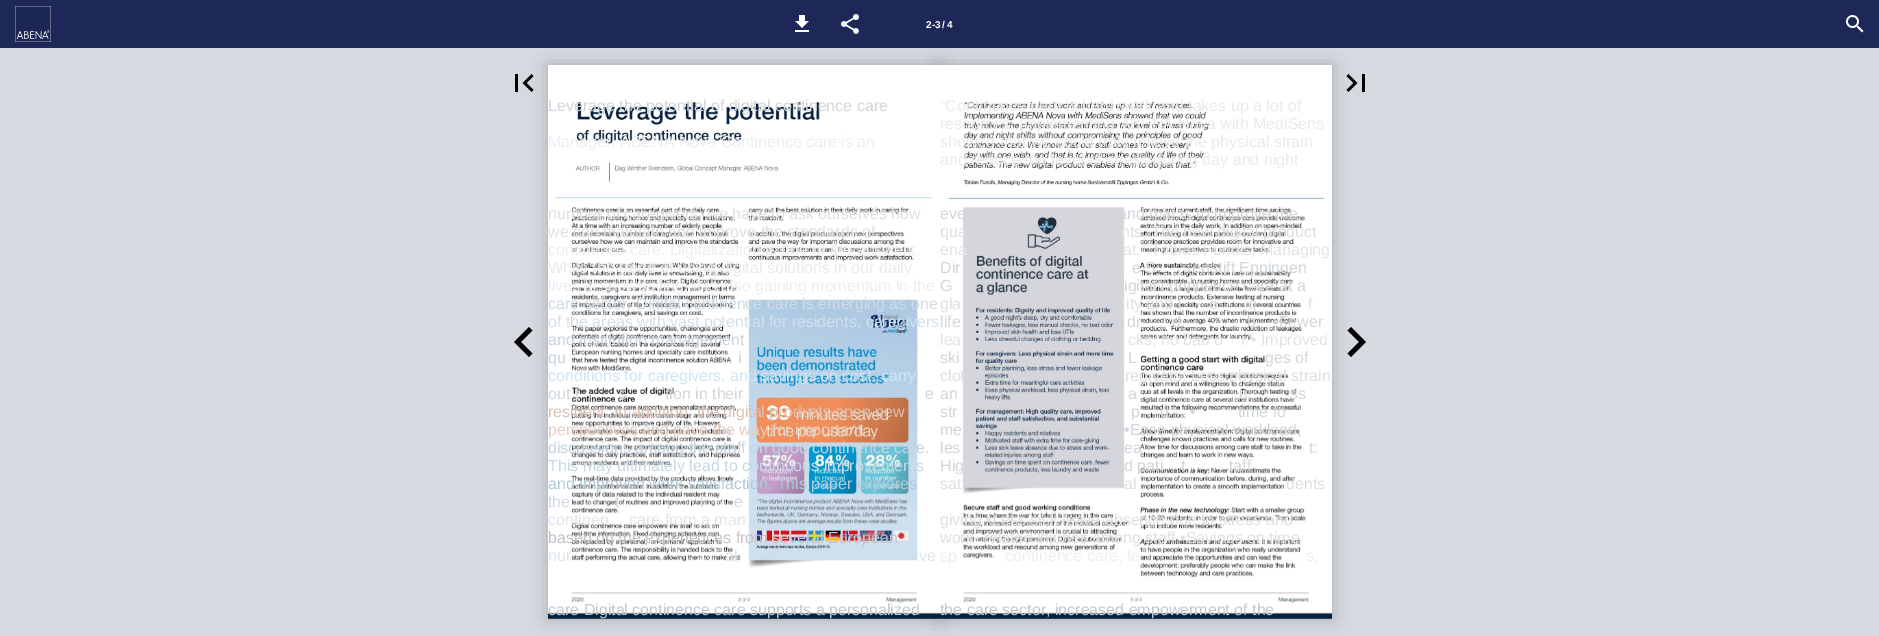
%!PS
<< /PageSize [1879 636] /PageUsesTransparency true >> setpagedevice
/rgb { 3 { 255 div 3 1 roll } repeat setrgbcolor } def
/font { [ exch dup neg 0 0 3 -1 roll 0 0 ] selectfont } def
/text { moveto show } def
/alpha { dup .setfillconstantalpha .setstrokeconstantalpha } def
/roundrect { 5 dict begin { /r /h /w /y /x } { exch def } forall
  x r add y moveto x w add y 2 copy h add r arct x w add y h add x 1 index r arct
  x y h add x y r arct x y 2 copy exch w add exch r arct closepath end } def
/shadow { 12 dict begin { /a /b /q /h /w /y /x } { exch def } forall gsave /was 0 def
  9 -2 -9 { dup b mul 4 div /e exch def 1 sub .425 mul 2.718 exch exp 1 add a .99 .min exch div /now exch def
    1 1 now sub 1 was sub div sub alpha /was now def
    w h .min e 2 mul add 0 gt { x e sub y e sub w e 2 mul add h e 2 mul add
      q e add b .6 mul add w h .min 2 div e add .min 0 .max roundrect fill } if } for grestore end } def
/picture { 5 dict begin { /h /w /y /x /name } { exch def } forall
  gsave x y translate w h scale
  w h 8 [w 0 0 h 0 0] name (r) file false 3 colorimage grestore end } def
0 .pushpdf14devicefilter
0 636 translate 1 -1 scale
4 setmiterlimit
215 217 224 rgb
0 0 1879 636 rectfill
0 0 0 rgb
548 65 392 554 0 8 0.2 shadow
940 65 392 554 0 8 0.2 shadow
29 40 88 rgb
0 0 1879 48 rectfill
(img_01.rgb) 15 6 36 36 picture
(img_02.rgb) 795 15 14 17 picture
(img_03.rgb) 841 14 18 20 picture
(img_04.rgb) 1846 15 18 18 picture
(img_05.rgb) 515 74 19 18 picture
0 0 0 rgb
532.5 330.5 moveto -3.5 -3.5 rlineto -15 15 rlineto 15 15 rlineto 3.5 -3.5 rlineto -11.5 -11.5 rlineto closepath fill
255 255 255 rgb
548 65 784 554 rectfill
(img_06.rgb) 548 100 392 519 picture
(img_07.rgb) 940 101 392 518 picture
(img_08.rgb) 1346 74 19 18 picture
0 0 0 rgb
1351 327 moveto -3.5 3.5 rlineto 11.5 11.5 rlineto -11.5 11.5 rlineto 3.5 3.5 rlineto 15 -15 rlineto closepath fill
/LiberationSans-Bold 10 font
255 255 255 rgb
(2-3 / 4) 926 28 text
/LiberationSans-Regular 16 font
209 214 218 rgb
(Leverage the potential of digital continence care) 548 111 text
237 238 240 rgb
(Manager, ABENA Nova Continence care is an) 548 147 text
223 223 223 rgb
(number of caregivers, we have to ask ourselves how) 548 219 text
(we can maintain and improve the standards of) 548 237 text
237 238 240 rgb
(continence care. Digitalization is one of the answers.) 548 255 text
234 234 234 rgb
(While the trend of using digital solutions in our daily) 548 273 text
237 238 240 rgb
(lives is snowballing, it is also gaining momentum in the) 548 291 text
206 218 228 rgb
(care sector. Digital continence care is emerging as one) 548 309 text
211 223 234 rgb
(of the areas with vast potential for residents, caregivers) 548 327 text
200 211 220 rgb
(and institution management) 548 345 text
194 212 223 rgb
(qu) 548 363 text
(i) 738 363 text
207 228 241 rgb
(conditions for caregivers, and savings on cost. carry) 548 381 text
209 214 218 rgb
(out t) 548 399 text
(s) 619 399 text
(tion in their) 665 399 text
(e) 925 399 text
220 193 178 rgb
(resident. In addition, the digital products open new) 548 417 text
228 205 191 rgb
(perspectives and pave the way for important) 548 435 text
194 212 223 rgb
(discussions among the staff on good continence care.) 548 453 text
196 217 229 rgb
(This may ultimately lead to continuous improvements) 548 471 text
177 202 216 rgb
(and improved work satisfaction. This paper explores) 548 489 text
206 218 228 rgb
(the) 548 507 text
(t) 615 507 text
(,) 666 507 text
(l) 700 507 text
(e) 734 507 text
221 228 235 rgb
(continen) 548 525 text
(care from a man) 629 525 text
199 192 196 rgb
(based on the experiences from several European) 548 543 text
221 228 235 rgb
(nur) 548 561 text
(al) 725 561 text
(ve) 919 561 text
194 200 207 rgb
(care Digital continence care supports a personalized) 548 615 text
234 234 234 rgb
(“Continence care is hard work and takes up a lot of) 940 111 text
(resources. Implementing ABENA Nova with MediSens) 940 129 text
(showed that we could truly relieve the physical strain) 940 147 text
(and reduce the level of stress during day and night) 940 165 text
209 214 218 rgb
(eve) 940 219 text
(and that is to improve the) 1118 219 text
223 223 223 rgb
(qua) 940 237 text
(nts. The new digital product) 1121 237 text
227 227 229 rgb
(ena) 940 255 text
(at.” Tobias Fundis, Managing) 1123 255 text
209 214 218 rgb
(Dir) 940 273 text
(e S) 1132 273 text
(renstift Eppingen) 1187 273 text
(G) 940 291 text
(igital continence care at a) 1124 291 text
223 223 223 rgb
(gla) 940 309 text
(ity and i) 1126 309 text
(o) 1209 309 text
(q) 1248 309 text
(f) 1308 309 text
209 214 218 rgb
(life) 940 327 text
(dr) 1127 327 text
(d) 1172 327 text
(b) 1247 327 text
(•Fewer) 1273 327 text
227 227 229 rgb
(lea) 940 345 text
(cks, no bad o) 1128 345 text
(r • Improved) 1241 345 text
209 214 218 rgb
(ski) 940 363 text
(L) 1128 363 text
(ges of) 1265 363 text
223 223 223 rgb
(clot) 940 381 text
(regivers: Less physical strain) 1125 381 text
209 214 218 rgb
(an) 940 399 text
(a) 1128 399 text
(n) 1239 399 text
(ss) 1290 399 text
(str) 940 417 text
(p) 1131 417 text
(d) 1160 417 text
(•) 1190 417 text
(time fo) 1238 417 text
(me) 940 435 text
(•Ease physical workload,) 1124 435 text
(les) 940 453 text
(ea) 1124 453 text
(t:) 1309 453 text
(Hig) 940 471 text
(d pati) 1124 471 text
(t) 1181 471 text
(taff) 1229 471 text
223 223 223 rgb
(sat) 940 489 text
(al) 1124 489 text
(dents) 1286 489 text
(giving •Less sick leave absence due to stress and) 940 525 text
(work- related injuries among staff •Savings on time) 940 543 text
237 238 240 rgb
(sp) 940 561 text
(continence care, fe) 1005 561 text
(s,) 1306 561 text
194 200 207 rgb
(the care sector, increased empowerment of the) 940 615 text
.poppdf14devicefilter showpage
